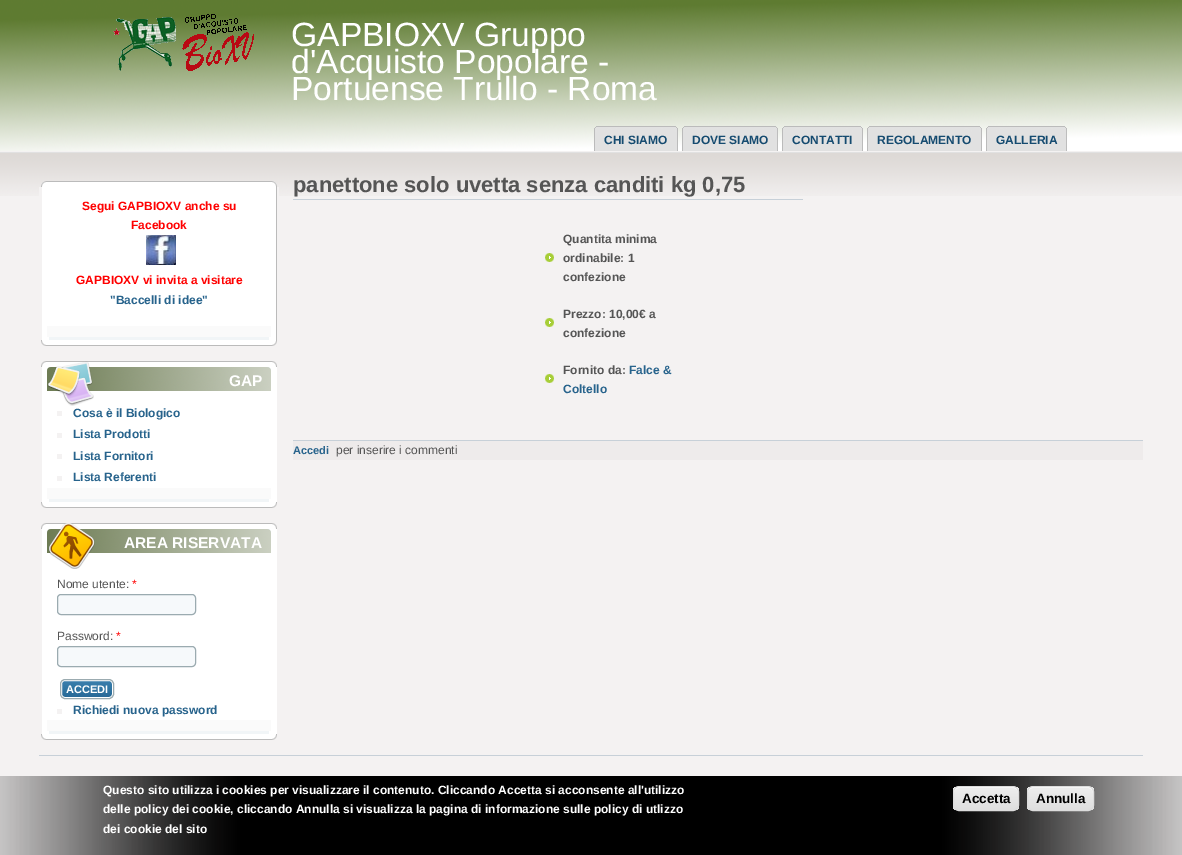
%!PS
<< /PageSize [1182 855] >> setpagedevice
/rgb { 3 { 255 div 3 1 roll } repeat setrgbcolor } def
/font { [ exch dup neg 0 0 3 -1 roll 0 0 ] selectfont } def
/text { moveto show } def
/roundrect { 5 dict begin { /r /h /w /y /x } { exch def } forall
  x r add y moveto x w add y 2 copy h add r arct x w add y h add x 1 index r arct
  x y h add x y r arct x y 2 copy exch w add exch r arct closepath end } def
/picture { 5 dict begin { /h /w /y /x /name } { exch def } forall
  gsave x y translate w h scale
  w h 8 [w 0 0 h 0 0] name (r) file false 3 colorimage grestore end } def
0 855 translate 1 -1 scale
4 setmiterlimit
244 242 242 rgb
0 0 1182 855 rectfill
(img_01.rgb) 0 0 1182 151 picture
(img_02.rgb) 113 14 141 57 picture
(img_03.rgb) 594 126 18 25 picture
(img_04.rgb) 612 126 66 25 picture
(img_05.rgb) 682 126 18 25 picture
(img_06.rgb) 700 126 78 25 picture
(img_07.rgb) 782 126 18 25 picture
(img_08.rgb) 800 126 63 25 picture
(img_09.rgb) 867 126 18 25 picture
(img_10.rgb) 885 126 97 25 picture
(img_11.rgb) 986 126 18 25 picture
(img_12.rgb) 1004 126 63 25 picture
(img_13.rgb) 0 152 1182 44 picture
(img_14.rgb) 41 181 227 6 picture
(img_15.rgb) 268 181 9 6 picture
(img_16.rgb) 42 187 237 153 picture
39 187 3 9 rectfill
250 250 250 rgb
47 326 224 11 rectfill
241 245 247 rgb
49 337 220 3 rectfill
(img_17.rgb) 146 235 30 30 picture
(img_18.rgb) 41 340 227 6 picture
(img_19.rgb) 268 340 9 6 picture
(img_20.rgb) 41 361 227 6 picture
(img_21.rgb) 268 361 9 6 picture
255 255 255 rgb
42 367 235 135 rectfill
(img_23.rgb) 47 367 224 24 picture
(img_22.rgb) 47 361 47 45 picture
250 250 250 rgb
47 488 224 11 rectfill
241 245 247 rgb
49 499 220 3 rectfill
244 242 242 rgb
57 411 5 5 rectfill
57 433 5 5 rectfill
57 454 5 5 rectfill
57 476 5 5 rectfill
(img_18.rgb) 41 502 227 6 picture
(img_19.rgb) 268 502 9 6 picture
(img_20.rgb) 41 523 227 6 picture
(img_21.rgb) 268 523 9 6 picture
255 255 255 rgb
42 529 235 205 rectfill
(img_23.rgb) 47 529 224 24 picture
(img_24.rgb) 48 523 47 46 picture
250 250 250 rgb
47 720 224 11 rectfill
241 245 247 rgb
49 731 220 3 rectfill
246 249 251 rgb
57.5 594.5 138 20 3.5 roundrect gsave fill grestore
155 171 176 rgb
stroke
246 249 251 rgb
57.5 646.5 138 20 3.5 roundrect gsave fill grestore
155 171 176 rgb
stroke
(img_25.rgb) 62 680 51 18 picture
255 255 255 rgb
61.5 680.5 51 17 3.5 roundrect stroke
155 171 176 rgb
60.5 679.5 53 19 4.5 roundrect stroke
244 242 242 rgb
57 709 5 5 rectfill
(img_18.rgb) 41 734 227 6 picture
(img_19.rgb) 268 734 9 6 picture
199 208 216 rgb
293 199 510 1 rectfill
293 440 850 1 rectfill
(img_26.rgb) 545 253 9 9 picture
(img_26.rgb) 545 318 9 9 picture
(img_26.rgb) 545 374 9 9 picture
238 235 235 rgb
293 441 850 19 rectfill
199 208 216 rgb
39 755 1104 1 rectfill
(img_27.rgb) 0 776 1182 79 picture
gsave
953 786 66 25 6 roundrect clip newpath
gsave 953 787 moveto 66 0 rlineto 0 23 rlineto -66 0 rlineto closepath clip newpath
<< /ShadingType 2 /ColorSpace /DeviceRGB /Coords [954 787 954 810] /Extend [true true] /Function << /FunctionType 3 /Domain [0 1] /Functions [<< /FunctionType 2 /Domain [0 1] /C0 [0.929 0.929 0.929] /C1 [0.929 0.929 0.929] /N 1 >> << /FunctionType 2 /Domain [0 1] /C0 [0.929 0.929 0.929] /C1 [0.875 0.875 0.875] /N 1 >>] /Bounds [0.05] /Encode [0 1 0 1] >> >> shfill grestore
grestore
255 255 255 rgb
959 788 moveto 54 0 rlineto 3 0 5 2 5 5 rcurveto 0 -8 -8 -6 -14 -6 rcurveto -36 0 rlineto -6 0 -14 -2 -14 6 rcurveto 0 -3 2 -5 5 -5 rcurveto closepath fill
220 220 220 rgb
953.5 786.5 65 24 5.5 roundrect stroke
gsave
1027 786 67 25 6 roundrect clip newpath
gsave 1027 787 moveto 67 0 rlineto 0 23 rlineto -67 0 rlineto closepath clip newpath
<< /ShadingType 2 /ColorSpace /DeviceRGB /Coords [1028 787 1028 810] /Extend [true true] /Function << /FunctionType 3 /Domain [0 1] /Functions [<< /FunctionType 2 /Domain [0 1] /C0 [0.929 0.929 0.929] /C1 [0.929 0.929 0.929] /N 1 >> << /FunctionType 2 /Domain [0 1] /C0 [0.929 0.929 0.929] /C1 [0.875 0.875 0.875] /N 1 >>] /Bounds [0.05] /Encode [0 1 0 1] >> >> shfill grestore
grestore
255 255 255 rgb
1033 788 moveto 55 0 rlineto 3 0 5 2 5 5 rcurveto 0 -8 -8 -6 -14 -6 rcurveto -37 0 rlineto -6 0 -14 -2 -14 6 rcurveto 0 -3 2 -5 5 -5 rcurveto closepath fill
220 220 220 rgb
1027.5 786.5 66 24 5.5 roundrect stroke
/LiberationSans-Regular 33.6 font
255 255 255 rgb
(GAPBIOXV Gruppo) 291 46 text
(d'Acquisto Popolare -) 291 73 text
(Portuense Trullo - Roma) 291 100 text
/LiberationSans-Bold 12 font
21 75 112 rgb
(CHI SIAMO) 604 144 text
(DOVE SIAMO) 692 144 text
(CONTATTI) 792 144 text
(REGOLAMENTO) 877 144 text
(GALLERIA) 996 144 text
255 0 0 rgb
(Segui GAPBIOXV anche su) 82 210 text
(Facebook) 131 229 text
(GAPBIOXV vi invita a visitare) 76 284 text
39 99 140 rgb
("Baccelli di idee") 110 304 text
/LiberationSans-Bold 15.5 font
255 255 255 rgb
(GAP) 229 386 text
/LiberationSans-Bold 12 font
39 99 140 rgb
(Cosa è il Biologico) 73 417 text
(Lista Prodotti) 73 438 text
(Lista Fornitori) 73 460 text
(Lista Referenti) 73 481 text
/LiberationSans-Bold 15.5 font
255 255 255 rgb
(AREA RISERVATA) 124 548 text
/LiberationSans-Regular 12 font
85 85 85 rgb
(Nome utente:) 57 588 text
255 0 0 rgb
(*) 132 588 text
85 85 85 rgb
(Password:) 57 640 text
255 0 0 rgb
(*) 116 640 text
/LiberationSans-Bold 11 font
255 255 255 rgb
(ACCEDI) 66 693 text
/LiberationSans-Bold 12 font
39 99 140 rgb
(Richiedi nuova password) 73 714 text
/LiberationSans-Bold 22 font
85 85 85 rgb
(panettone solo uvetta senza canditi kg 0,75) 293 192 text
/LiberationSans-Bold 12 font
(Quantita minima) 563 243 text
(ordinabile: 1) 563 262 text
(confezione) 563 281 text
(Prezzo: 10,00€ a) 563 318 text
(confezione) 563 337 text
(Fornito da:) 563 374 text
39 99 140 rgb
(Falce &) 629 374 text
(Coltello) 563 393 text
/LiberationSans-Bold 11 font
(Accedi) 293 454 text
/LiberationSans-Regular 12 font
85 85 85 rgb
(per inserire i commenti) 336 454 text
/LiberationSans-Bold 12 font
255 255 255 rgb
(Questo sito utilizza i cookies per visualizzare il contenuto. Cliccando Accetta si acconsente all'utilizzo) 103 794 text
(delle policy dei cookie, cliccando Annulla si visualizza la pagina di informazione sulle policy di utlizzo) 103 813 text
(dei cookie del sito) 103 833 text
/LiberationSans-Bold 13.5 font
0 0 0 rgb
(Accetta) 962 803 text
(Annulla) 1036 803 text
showpage
